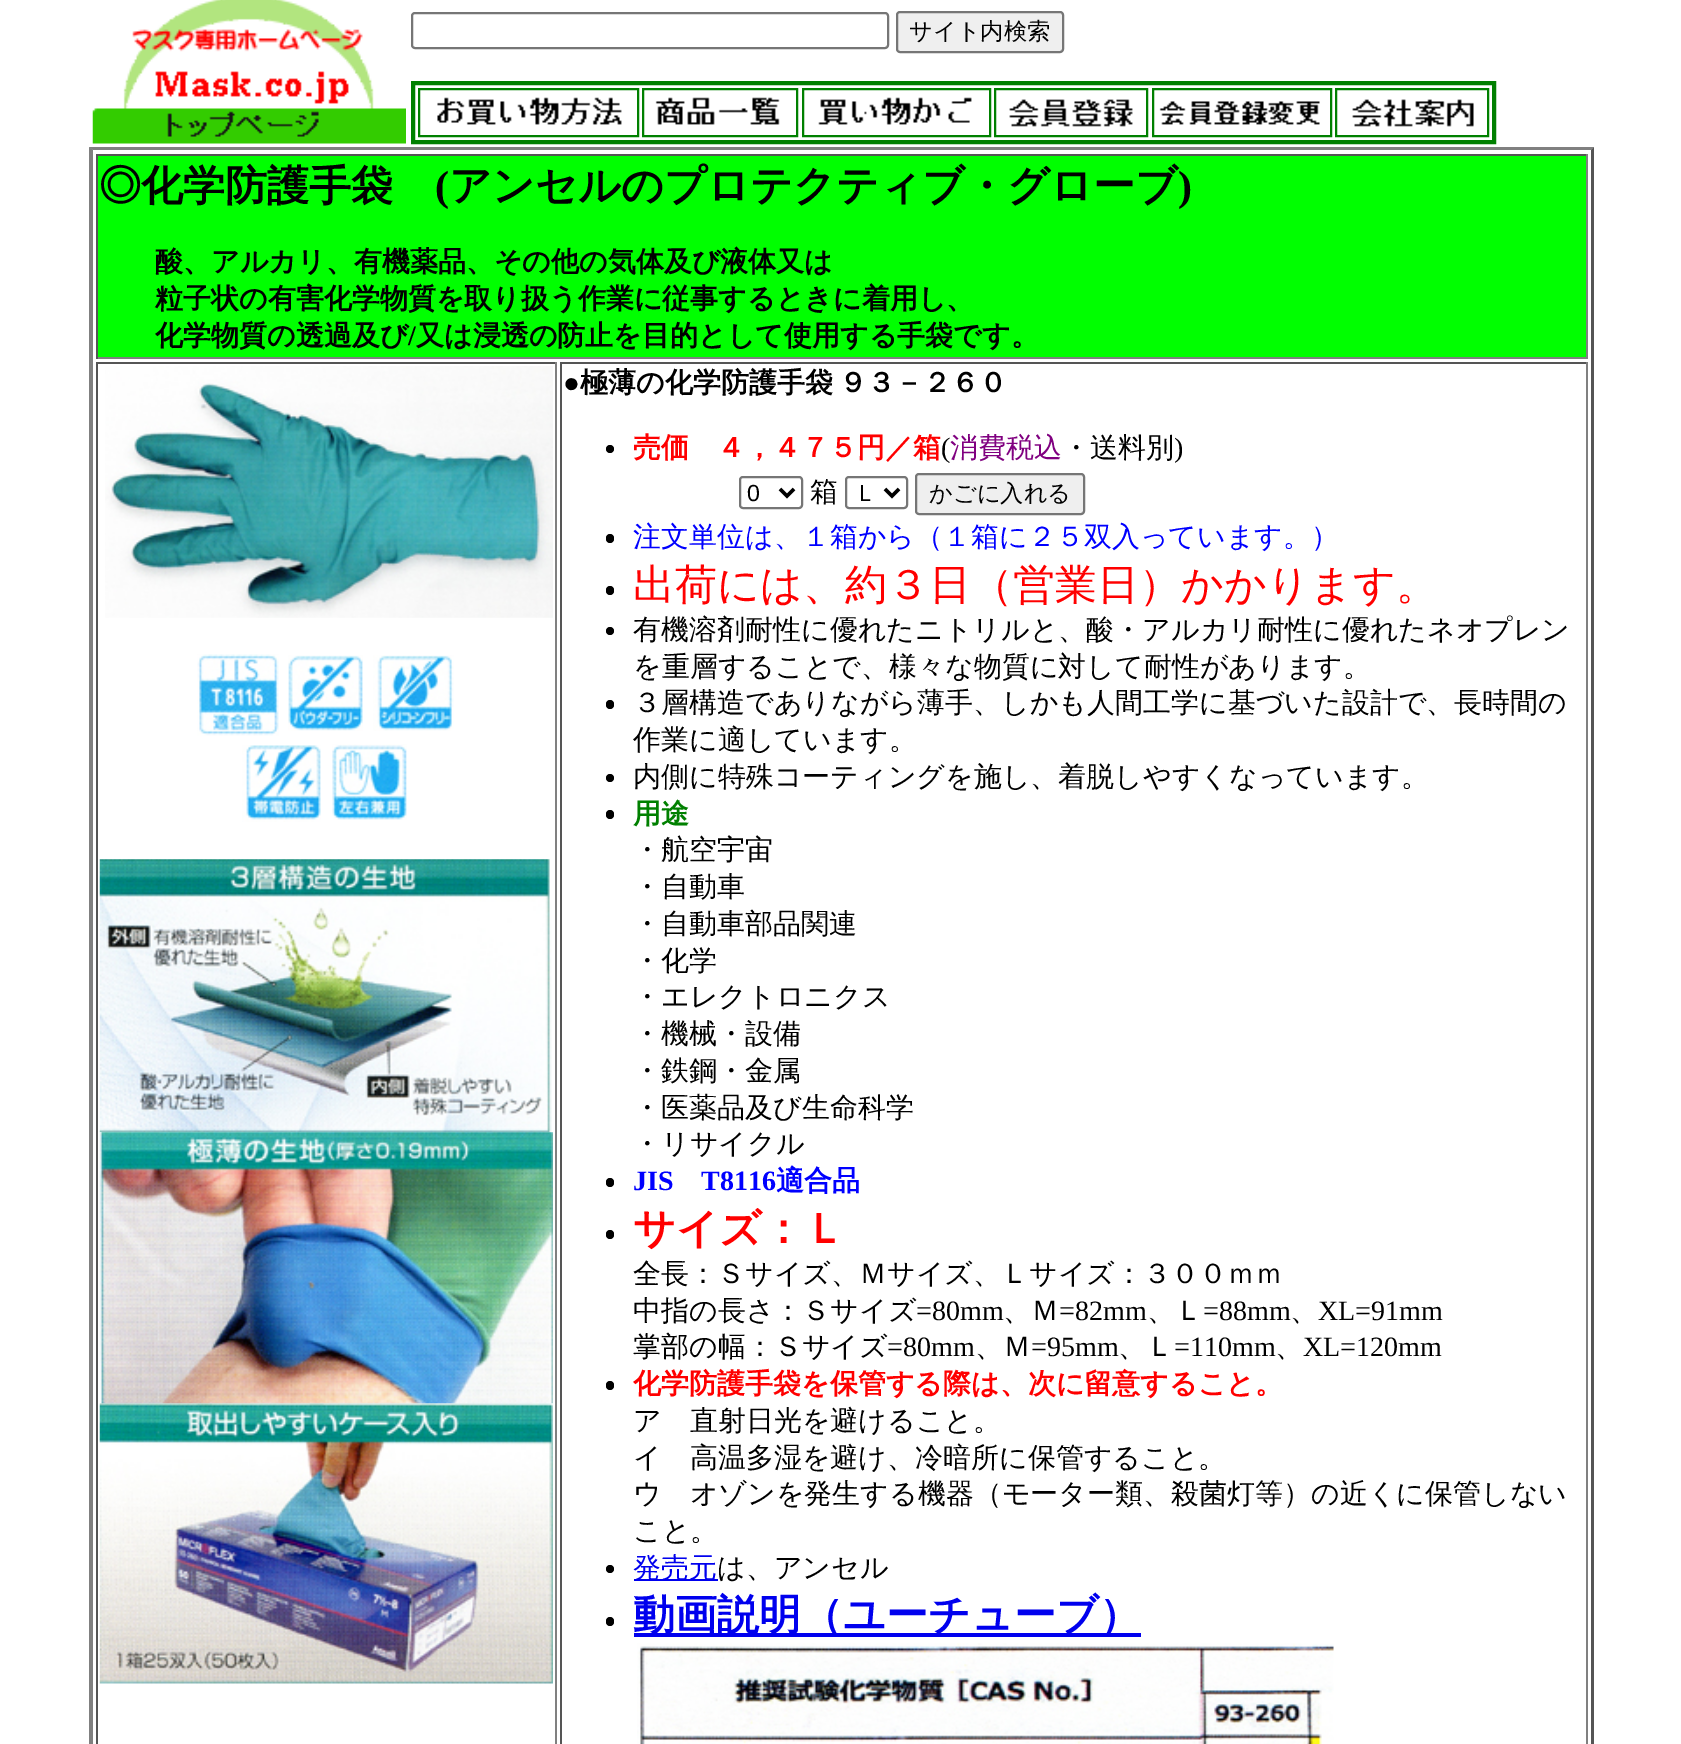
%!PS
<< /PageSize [1681 1744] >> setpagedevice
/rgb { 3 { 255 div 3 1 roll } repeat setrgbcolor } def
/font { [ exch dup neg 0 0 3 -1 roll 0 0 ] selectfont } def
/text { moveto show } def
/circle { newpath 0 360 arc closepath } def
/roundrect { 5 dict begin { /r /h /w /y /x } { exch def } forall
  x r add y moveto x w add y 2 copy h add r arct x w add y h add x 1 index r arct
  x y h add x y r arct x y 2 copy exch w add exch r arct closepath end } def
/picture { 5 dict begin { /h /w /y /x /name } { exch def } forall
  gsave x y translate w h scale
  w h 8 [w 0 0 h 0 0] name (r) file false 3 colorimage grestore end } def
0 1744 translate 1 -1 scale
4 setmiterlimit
255 255 255 rgb
0 0 1681 1744 rectfill
(img_01.rgb) 92 0 314 144 picture
118 118 118 rgb
2 setlinewidth
412 13 476 35 3 roundrect stroke
239 239 239 rgb
897 12 166 40 3 roundrect gsave fill grestore
118 118 118 rgb
stroke
0 128 0 rgb
4 setlinewidth
413 83 1081 59 rectstroke
2 setlinewidth
419 89 219 47 rectstroke
(img_02.rgb) 437 97 185 28 picture
643 89 154 47 rectstroke
(img_03.rgb) 655 97 125 28 picture
803 89 187 47 rectstroke
(img_04.rgb) 818 97 154 28 picture
995 89 152 47 rectstroke
(img_05.rgb) 1009 99 124 28 picture
1153 89 178 47 rectstroke
(img_06.rgb) 1159 101 161 24 picture
1336 89 152 47 rectstroke
(img_07.rgb) 1352 99 122 28 picture
128 128 128 rgb
89 147 moveto 1505 0 rlineto -3 3 rlineto -1498 0 rlineto closepath fill
85 85 85 rgb
1594 147 moveto 0 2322 rlineto -3 -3 rlineto 0 -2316 rlineto closepath fill
128 128 128 rgb
89 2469 moveto 0 -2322 rlineto 4 3 rlineto 0 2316 rlineto closepath fill
0 255 0 rgb
98 156 1488 201 rectfill
85 85 85 rgb
96 154 1491 2 rectfill
128 128 128 rgb
1586 154 2 205 rectfill
96 357 1491 2 rectfill
85 85 85 rgb
96 154 2 205 rectfill
96 362 461 2 rectfill
128 128 128 rgb
555 362 2 1382 rectfill
85 85 85 rgb
96 362 2 1382 rectfill
(img_08.rgb) 105 366 448 252 picture
(img_09.rgb) 197 654 82 82 picture
(img_10.rgb) 288 655 75 76 picture
(img_11.rgb) 373 655 81 76 picture
(img_12.rgb) 242 745 79 77 picture
(img_13.rgb) 332 744 75 76 picture
(img_14.rgb) 99 859 453 274 picture
(img_15.rgb) 99 1132 454 272 picture
(img_16.rgb) 99 1403 454 281 picture
560 362 1027 2 rectfill
128 128 128 rgb
1586 362 2 1382 rectfill
85 85 85 rgb
560 362 2 1382 rectfill
0 0 0 rgb
610 449 4 circle fill
118 118 118 rgb
740 477 62 31 3 roundrect stroke
0 0 0 rgb
3.5 setlinewidth
780 489 moveto 7 7 rlineto 7 -7 rlineto stroke
118 118 118 rgb
2 setlinewidth
846 477 61 31 3 roundrect stroke
0 0 0 rgb
3.5 setlinewidth
885 489 moveto 7 7 rlineto 7 -7 rlineto stroke
239 239 239 rgb
916 474 168 40 3 roundrect gsave fill grestore
118 118 118 rgb
2 setlinewidth
stroke
0 0 0 rgb
606 534 8 9 4 roundrect fill
606 586 8 9 4 roundrect fill
610 631 4 circle fill
606 700 8 9 4 roundrect fill
610 778 4 circle fill
606 810 8 9 4 roundrect fill
606 1178 8 9 4 roundrect fill
606 1230 8 9 4 roundrect fill
606 1381 8 9 4 roundrect fill
610 1569 4 circle fill
0 0 238 rgb
634 1579 84 2 rectfill
0 0 0 rgb
606 1617 8 9 4 roundrect fill
0 0 238 rgb
634 1633 507 4 rectfill
(img_17.rgb) 637 1643 697 101 picture
/WenQuanYiZenHei-Medium 23.25 font
0 0 0 rgb
(サイト内検索) 909 39 text
/WenQuanYiZenHei-Bold 42 font
(◎化学防護手袋) 99 200 text
/LiberationSerif-Bold 42 font
(\() 435 200 text
/WenQuanYiZenHei-Bold 42 font
(アンセルのプロテクティブ・グローブ) 449 200 text
/LiberationSerif-Bold 42 font
(\)) 1178 200 text
/WenQuanYiZenHei-Bold 28 font
(酸、アルカリ、有機薬品、その他の気体及び液体又は) 155 271 text
(粒子状の有害化学物質を取り扱う作業に従事するときに着用し、) 155 308 text
(化学物質の透過及び) 155 345 text
/LiberationSerif-Bold 28 font
(/) 408 345 text
/WenQuanYiZenHei-Bold 28 font
(又は浸透の防止を目的として使用する手袋です。) 416 345 text
/LiberationSerif-Regular 28 font
(●) 563 392 text
/WenQuanYiZenHei-Bold 28 font
(極薄の化学防護手袋) 580 392 text
(９３－２６０) 839 392 text
255 0 0 rgb
(売価　４，４７５円／箱) 633 457 text
/LiberationSerif-Regular 28 font
0 0 0 rgb
(\() 941 457 text
/WenQuanYiZenHei-Medium 28 font
128 0 128 rgb
(消費税込) 950 457 text
0 0 0 rgb
(・送料別) 1062 457 text
/LiberationSerif-Regular 28 font
(\)) 1174 457 text
/LiberationSans-Regular 23.25 font
(0) 747 501 text
/WenQuanYiZenHei-Medium 28 font
(箱) 810 501 text
/WenQuanYiZenHei-Medium 23.25 font
(Ｌ) 854 501 text
(かごに入れる) 929 501 text
/WenQuanYiZenHei-Medium 28 font
0 0 255 rgb
(注文単位は、１箱から（１箱に２５双入っています。）) 633 546 text
/WenQuanYiZenHei-Medium 42 font
255 0 0 rgb
(出荷には、約３日（営業日）かかります。) 633 599 text
/WenQuanYiZenHei-Medium 28 font
0 0 0 rgb
(有機溶剤耐性に優れたニトリルと、酸・アルカリ耐性に優れたネオプレン) 633 639 text
(を重層することで、様々な物質に対して耐性があります。) 633 676 text
(３層構造でありながら薄手、しかも人間工学に基づいた設計で、長時間の) 633 712 text
(作業に適しています。) 633 749 text
(内側に特殊コーティングを施し、着脱しやすくなっています。) 633 786 text
/WenQuanYiZenHei-Bold 28 font
0 128 0 rgb
(用途) 633 823 text
/WenQuanYiZenHei-Medium 28 font
0 0 0 rgb
(・航空宇宙) 633 859 text
(・自動車) 633 896 text
(・自動車部品関連) 633 933 text
(・化学) 633 970 text
(・エレクトロニクス) 633 1006 text
(・機械・設備) 633 1043 text
(・鉄鋼・金属) 633 1080 text
(・医薬品及び生命科学) 633 1117 text
(・リサイクル) 633 1153 text
/LiberationSerif-Bold 28 font
0 0 255 rgb
(JIS) 633 1190 text
(T8116) 701 1190 text
/WenQuanYiZenHei-Bold 28 font
(適合品) 776 1190 text
/WenQuanYiZenHei-Bold 42 font
255 0 0 rgb
(サイズ：Ｌ) 633 1243 text
/WenQuanYiZenHei-Medium 28 font
0 0 0 rgb
(全長：Ｓサイズ、Ｍサイズ、Ｌサイズ：３００ｍｍ) 633 1283 text
(中指の長さ：Ｓサイズ) 633 1320 text
/LiberationSerif-Regular 28 font
(=80mm) 916 1320 text
/WenQuanYiZenHei-Medium 28 font
(、Ｍ) 1003 1320 text
/LiberationSerif-Regular 28 font
(=82mm) 1059 1320 text
/WenQuanYiZenHei-Medium 28 font
(、Ｌ) 1147 1320 text
/LiberationSerif-Regular 28 font
(=88mm) 1203 1320 text
/WenQuanYiZenHei-Medium 28 font
(、) 1290 1320 text
/LiberationSerif-Regular 28 font
(XL=91mm) 1318 1320 text
/WenQuanYiZenHei-Medium 28 font
(掌部の幅：Ｓサイズ) 633 1356 text
/LiberationSerif-Regular 28 font
(=80mm) 887 1356 text
/WenQuanYiZenHei-Medium 28 font
(、Ｍ) 975 1356 text
/LiberationSerif-Regular 28 font
(=95mm) 1031 1356 text
/WenQuanYiZenHei-Medium 28 font
(、Ｌ) 1118 1356 text
/LiberationSerif-Regular 28 font
(=110mm) 1174 1356 text
/WenQuanYiZenHei-Medium 28 font
(、) 1275 1356 text
/LiberationSerif-Regular 28 font
(XL=120mm) 1303 1356 text
/WenQuanYiZenHei-Bold 28 font
255 0 0 rgb
(化学防護手袋を保管する際は、次に留意すること。) 633 1393 text
/WenQuanYiZenHei-Medium 28 font
0 0 0 rgb
(ア　直射日光を避けること。) 633 1430 text
(イ　高温多湿を避け、冷暗所に保管すること。) 633 1467 text
(ウ　オゾンを発生する機器（モーター類、殺菌灯等）の近くに保管しない) 633 1503 text
(こと。) 633 1540 text
0 0 238 rgb
(発売元) 633 1577 text
0 0 0 rgb
(は、アンセル) 717 1577 text
/WenQuanYiZenHei-Bold 42 font
0 0 238 rgb
(動画説明（ユーチューブ）) 633 1629 text
showpage
